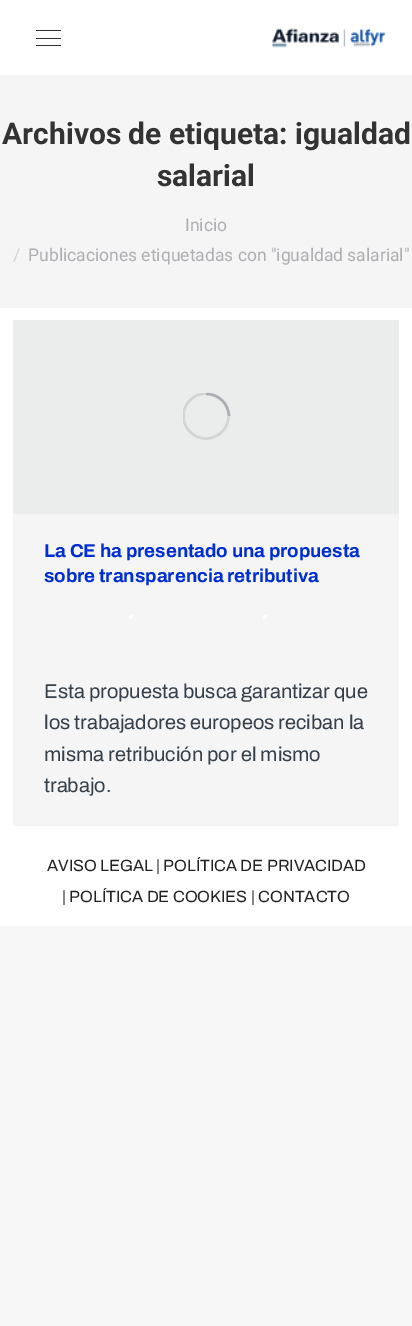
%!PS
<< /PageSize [412 1326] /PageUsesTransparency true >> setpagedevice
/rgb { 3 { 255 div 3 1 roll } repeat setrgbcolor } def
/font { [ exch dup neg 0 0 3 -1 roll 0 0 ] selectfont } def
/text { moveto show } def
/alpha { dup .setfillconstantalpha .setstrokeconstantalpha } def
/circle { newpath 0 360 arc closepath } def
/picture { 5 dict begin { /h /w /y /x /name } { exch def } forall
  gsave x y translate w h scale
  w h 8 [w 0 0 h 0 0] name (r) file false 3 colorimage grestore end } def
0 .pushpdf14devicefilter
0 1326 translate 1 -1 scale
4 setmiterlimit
247 247 247 rgb
0 0 412 1326 rectfill
255 255 255 rgb
0 0 412 926 rectfill
51 51 51 rgb
36 30 25 1 rectfill
36 38 25 1 rectfill
36 45 25 1 rectfill
(img_01.rgb) 271 28 115 20 picture
245 245 245 rgb
0 75 412 233 rectfill
13 514 386 312 rectfill
235 236 236 rgb
13 320 386 194 rectfill
gsave
183 393 47 47 rectclip
210 212 214 rgb
2.5 setlinewidth
206 416 22.5 circle stroke
grestore
0.25 alpha
53 64 75 rgb
2.5 setlinewidth
229 416 moveto 0 -12 -10.5 -22 -23 -22 rcurveto stroke
1 alpha
255 255 255 rgb
131 617 2 circle fill
265 617 2 circle fill
/Roboto-Bold 30 font
51 51 51 rgb
(Archivos de etiqueta: igualdad) 2 144 text
(salarial) 157 186 text
/Roboto-Regular 17.5 font
173 175 179 rgb
(Inicio) 185 231 text
209 210 212 rgb
(/) 13 261 text
173 175 179 rgb
(Publicaciones etiquetadas con "igualdad salarial") 28 261 text
/Archivo-Bold 18.75 font
0 46 210 rgb
(La CE ha presentado una propuesta) 44 557 text
(sobre transparencia retributiva) 44 582 text
/Archivo-Regular 20 font
53 64 75 rgb
(Esta propuesta busca garantizar que) 44 698 text
(los trabajadores europeos reciban la) 44 729 text
(misma retribución por el mismo) 44 761 text
(trabajo.) 44 792 text
/Archivo-Regular 16.25 font
34 34 34 rgb
(AVISO LEGAL | POLÍTICA DE PRIVACIDAD) 47 871 text
(| POLÍTICA DE COOKIES | CONTACTO) 62 902 text
.poppdf14devicefilter showpage
